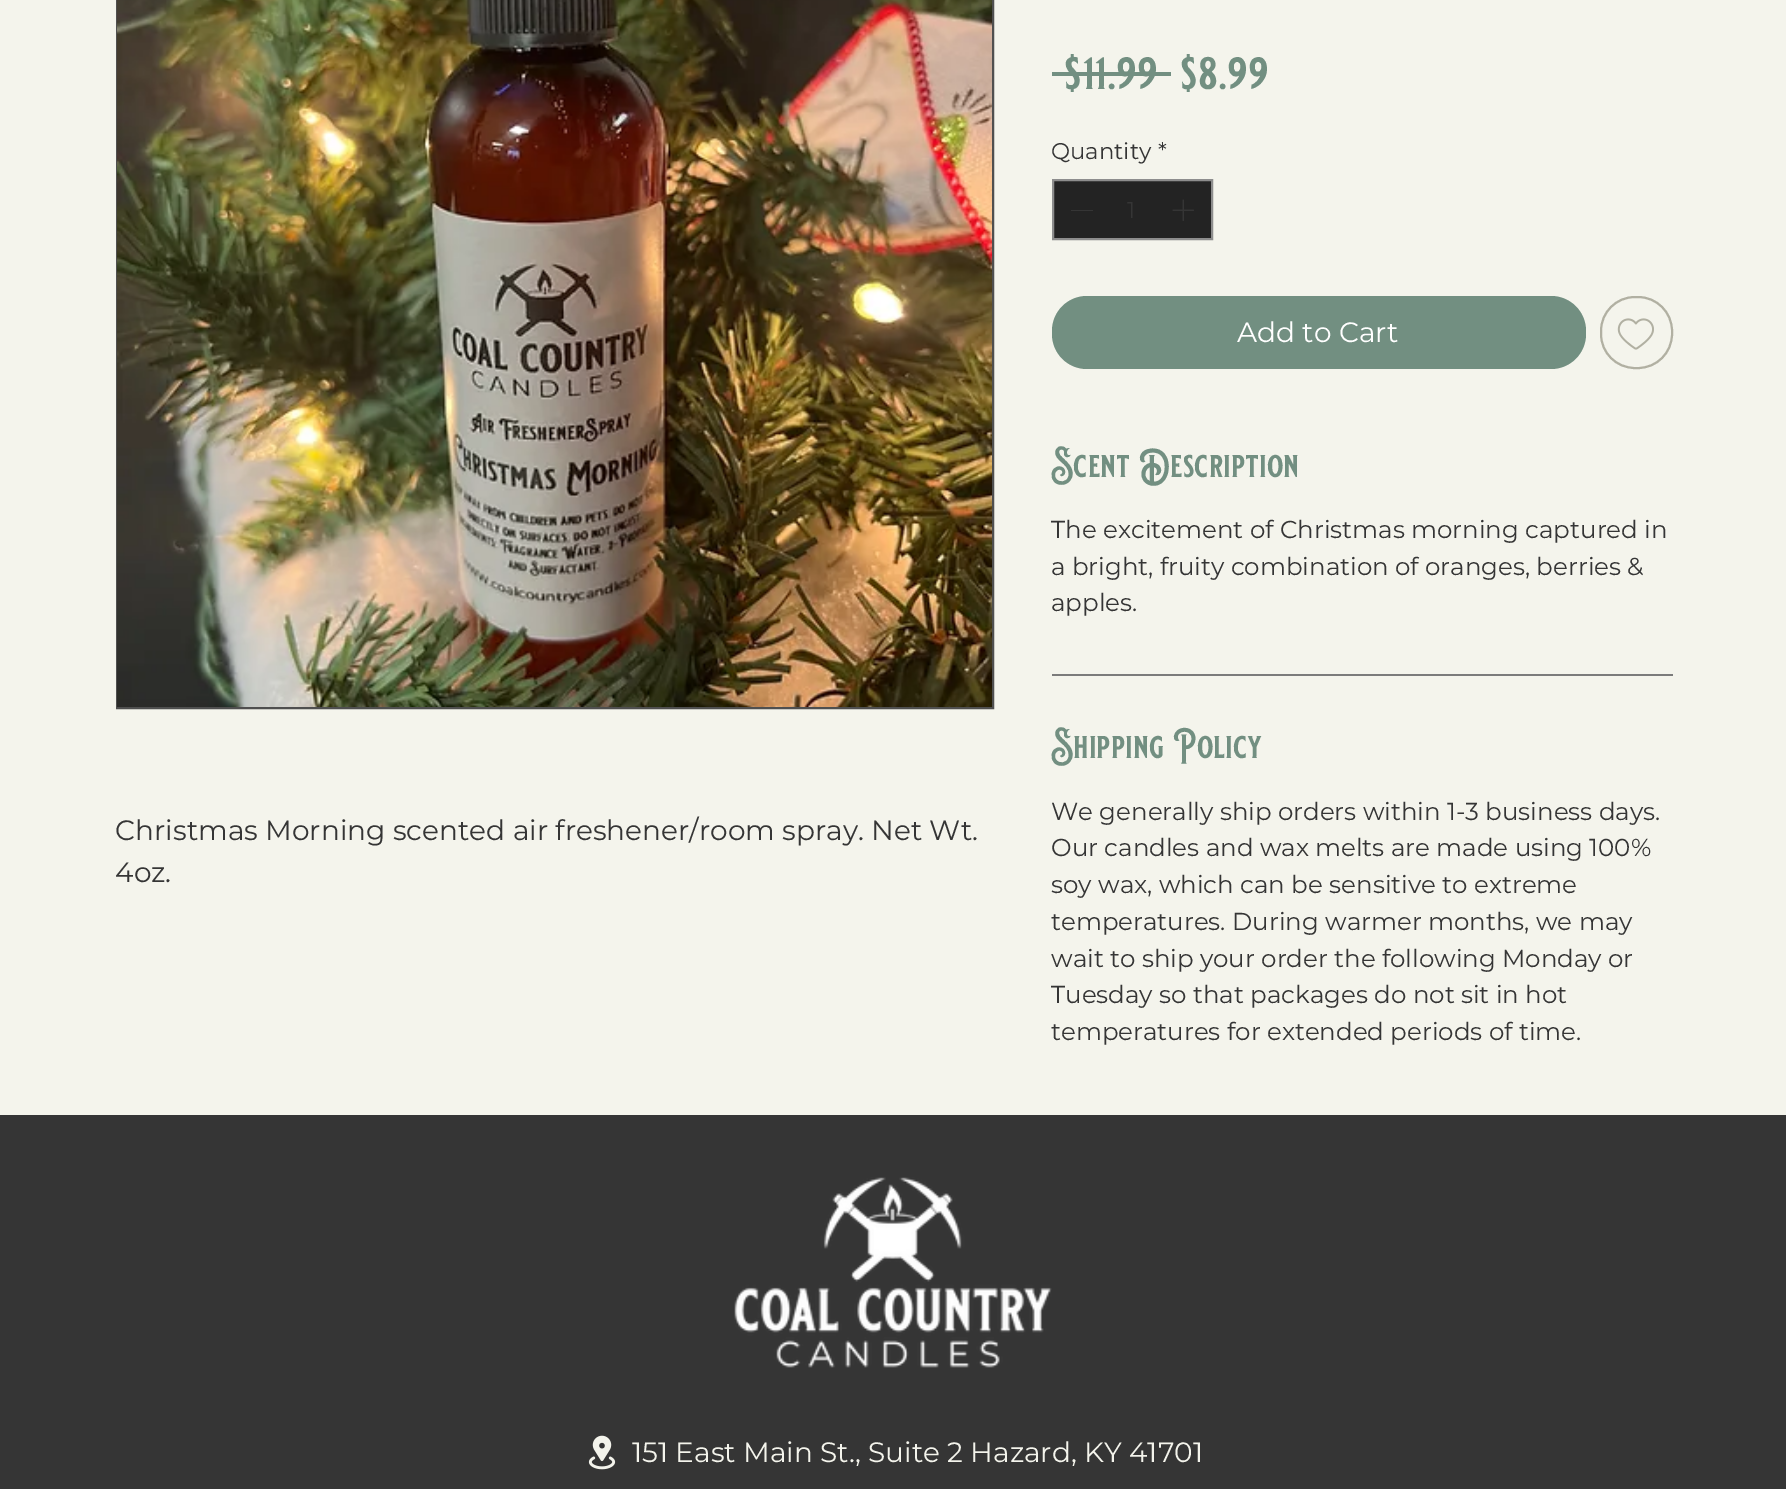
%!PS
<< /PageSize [1786 1489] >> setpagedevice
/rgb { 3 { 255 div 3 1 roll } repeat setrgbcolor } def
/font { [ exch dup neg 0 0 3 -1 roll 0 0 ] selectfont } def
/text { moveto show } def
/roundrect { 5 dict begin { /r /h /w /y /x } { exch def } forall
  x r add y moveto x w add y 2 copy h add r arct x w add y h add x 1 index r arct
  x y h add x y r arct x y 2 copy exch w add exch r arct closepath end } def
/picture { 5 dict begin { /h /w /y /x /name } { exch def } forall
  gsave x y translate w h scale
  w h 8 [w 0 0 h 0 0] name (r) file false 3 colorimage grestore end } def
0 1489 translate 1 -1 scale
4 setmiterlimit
244 244 236 rgb
0 0 1786 1489 rectfill
79 79 79 rgb
2 setlinewidth
117 -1 876 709 rectstroke
(img_01.rgb) 117 0 875 707 picture
114 143 129 rgb
1052 72 119 4 rectfill
35 35 35 rgb
1053 180 moveto 159 0 rlineto 0 59 rlineto -159 0 rlineto closepath gsave fill grestore
141 141 141 rgb
stroke
53 53 53 rgb
1071 210 22 1 rectfill
(img_02.rgb) 1172 199 22 22 picture
114 143 129 rgb
1052 296 534 73 35 roundrect fill
177 176 162 rgb
1601 297 71 71 34 roundrect stroke
(img_03.rgb) 1617 318 37 32 picture
123 123 123 rgb
1052 674 621 2 rectfill
53 53 53 rgb
0 1115 1786 374 rectfill
(img_04.rgb) 734 1177 318 191 picture
(img_05.rgb) 588 1435 28 35 picture
/Montserrat-Regular 28 font
(Christmas Morning scented air freshener/room spray. Net Wt.) 115 840 text
(4oz.) 115 882 text
/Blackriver-Bold 45.5 font
114 143 129 rgb
($11.99) 1064 89 text
($8.99) 1180 89 text
/Montserrat-Regular 22.75 font
53 53 53 rgb
(Quantity) 1051 159 text
(*) 1158 159 text
(1) 1127 218 text
/Montserrat-Regular 28 font
255 255 255 rgb
(Add to Cart) 1237 342 text
/Blackriver-Bold 31.5 font
114 143 129 rgb
(Scent Description) 1051 477 text
/Montserrat-Regular 24.5 font
53 53 53 rgb
(The excitement of Christmas morning captured in) 1051 538 text
(a bright, fruity combination of oranges, berries &) 1051 575 text
(apples.) 1051 611 text
/Blackriver-Bold 31.5 font
114 143 129 rgb
(Shipping Policy) 1051 758 text
/Montserrat-Regular 24.5 font
53 53 53 rgb
(We generally ship orders within 1-3 business days.) 1051 820 text
(Our candles and wax melts are made using 100%) 1051 856 text
(soy wax, which can be sensitive to extreme) 1051 893 text
(temperatures. During warmer months, we may) 1051 930 text
(wait to ship your order the following Monday or) 1051 967 text
(Tuesday so that packages do not sit in hot) 1051 1003 text
(temperatures for extended periods of time.) 1051 1040 text
/Montserrat-Regular 28 font
244 244 236 rgb
(151 East Main St., Suite 2 Hazard, KY 41701) 632 1462 text
showpage
